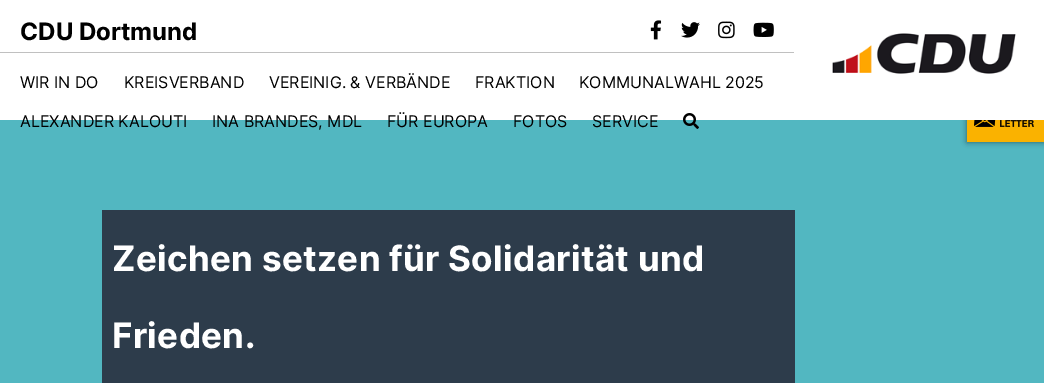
%!PS
<< /PageSize [1044 383] /PageUsesTransparency true >> setpagedevice
/rgb { 3 { 255 div 3 1 roll } repeat setrgbcolor } def
/font { [ exch dup neg 0 0 3 -1 roll 0 0 ] selectfont } def
/text { moveto show } def
/alpha { dup .setfillconstantalpha .setstrokeconstantalpha } def
/roundrect { 5 dict begin { /r /h /w /y /x } { exch def } forall
  x r add y moveto x w add y 2 copy h add r arct x w add y h add x 1 index r arct
  x y h add x y r arct x y 2 copy exch w add exch r arct closepath end } def
/shadow { 12 dict begin { /a /b /q /h /w /y /x } { exch def } forall gsave /was 0 def
  9 -2 -9 { dup b mul 4 div /e exch def 1 sub .425 mul 2.718 exch exp 1 add a .99 .min exch div /now exch def
    1 1 now sub 1 was sub div sub alpha /was now def
    w h .min e 2 mul add 0 gt { x e sub y e sub w e 2 mul add h e 2 mul add
      q e add b .6 mul add w h .min 2 div e add .min 0 .max roundrect fill } if } for grestore end } def
/picture { 5 dict begin { /h /w /y /x /name } { exch def } forall
  gsave x y translate w h scale
  w h 8 [w 0 0 h 0 0] name (r) file false 3 colorimage grestore end } def
0 .pushpdf14devicefilter
0 383 translate 1 -1 scale
4 setmiterlimit
82 183 193 rgb
0 0 1044 383 rectfill
0 0 0 rgb
967 97 77 45 0 3 0.5 shadow
255 255 255 rgb
0 0 1044 120 rectfill
192 192 192 rgb
0 52 794 1 rectfill
(img_01.rgb) 650 20 12 20 picture
(img_02.rgb) 681 22 19 16 picture
(img_03.rgb) 718 21 17 18 picture
(img_04.rgb) 753 22 21 15 picture
(img_05.rgb) 832 33 184 41 picture
(img_06.rgb) 683 113 16 16 picture
250 178 0 rgb
967 120 77 22 rectfill
(img_07.rgb) 974 120 60 7 picture
45 60 75 rgb
102 210 693 173 rectfill
/Inter-Bold 24 font
0 0 0 rgb
(CDU Dortmund) 20 40 text
/Inter-Regular 16 font
(WIR IN DO) 20 88 text
(KREISVERBAND) 124 88 text
(VEREINIG. & VERBÄNDE) 269 88 text
(FRAKTION) 475 88 text
(KOMMUNALWAHL 2025) 579 88 text
(ALEXANDER KALOUTI) 20 127 text
(INA BRANDES, MDL) 212 127 text
(FÜR EUROPA) 387 127 text
(FOTOS) 513 127 text
(SERVICE) 592 127 text
/Inter-Bold 35 font
255 255 255 rgb
112 271 moveto 0.35 0 (Zeichen setzen für Solidarität und) ashow
112 348 moveto 0.35 0 (Frieden.) ashow
.poppdf14devicefilter showpage
